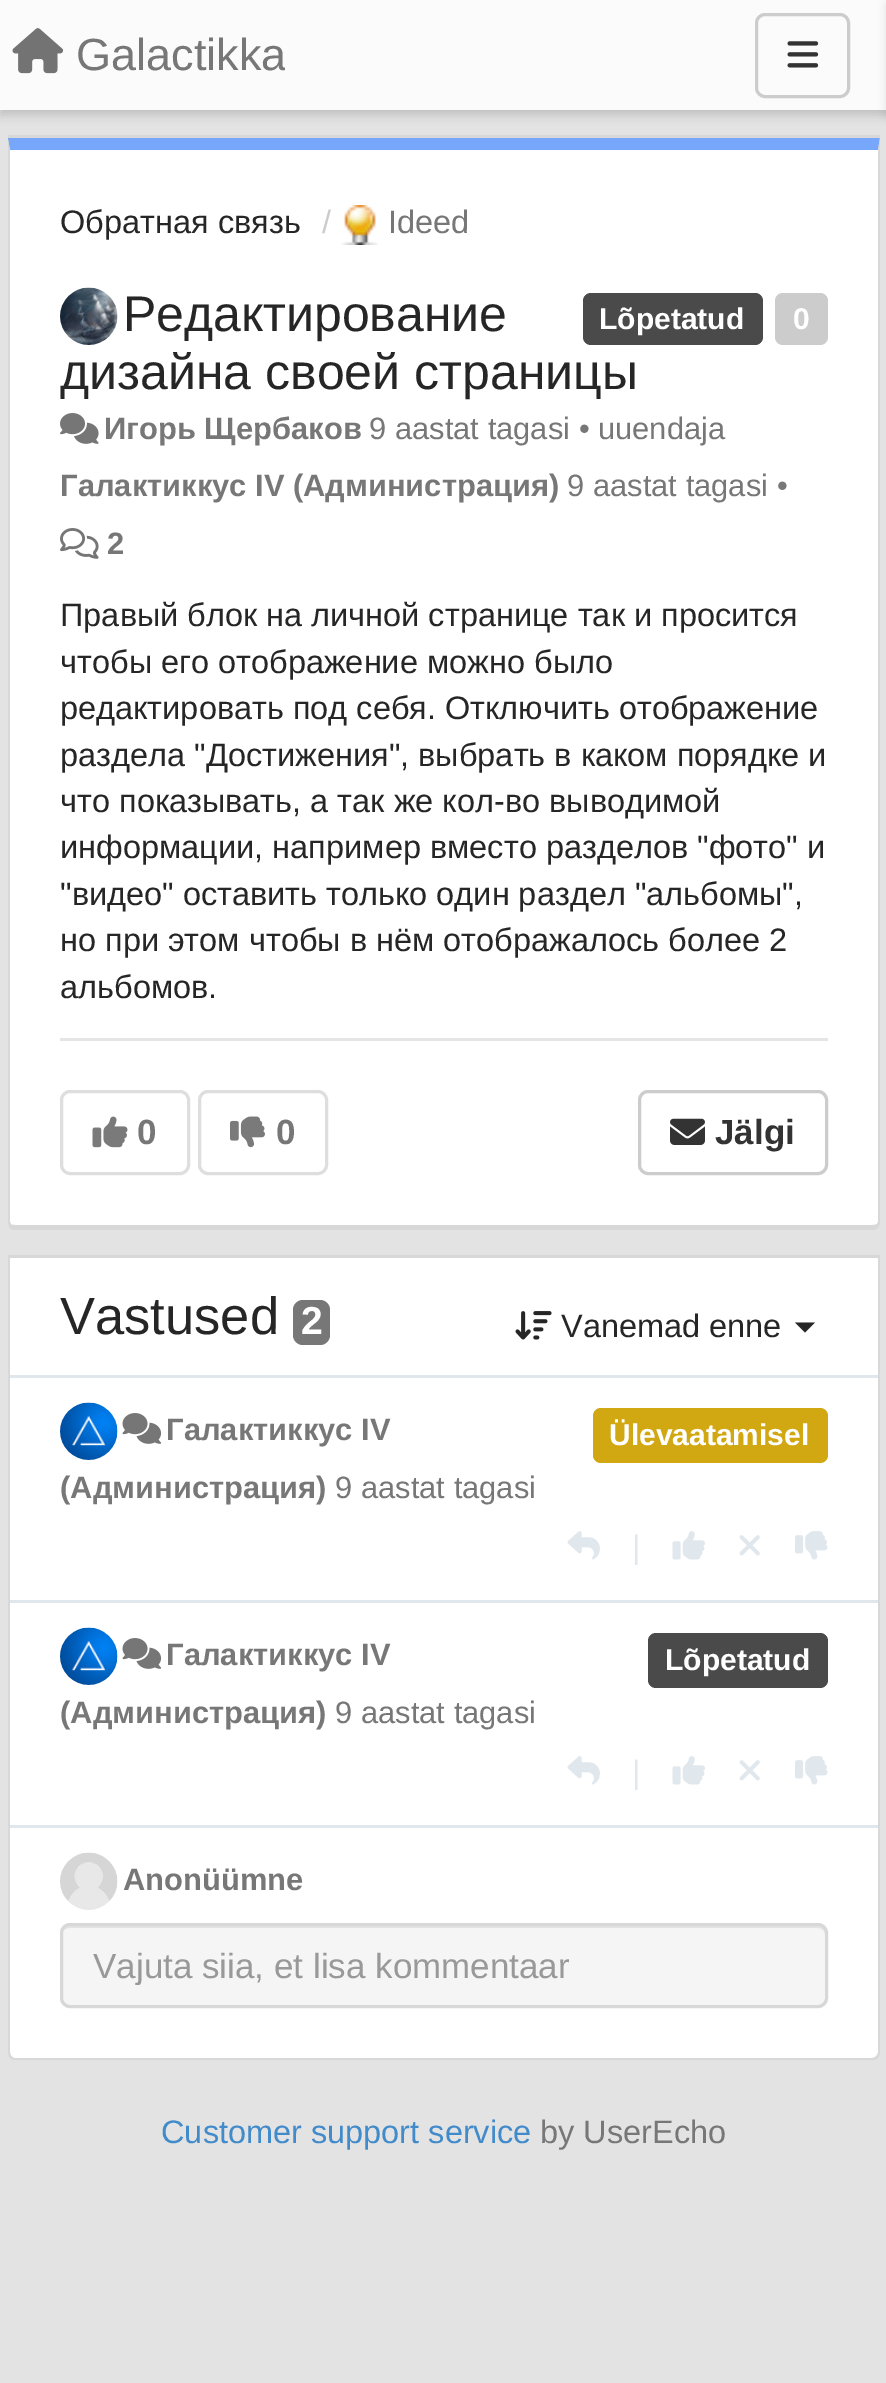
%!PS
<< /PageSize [886 2383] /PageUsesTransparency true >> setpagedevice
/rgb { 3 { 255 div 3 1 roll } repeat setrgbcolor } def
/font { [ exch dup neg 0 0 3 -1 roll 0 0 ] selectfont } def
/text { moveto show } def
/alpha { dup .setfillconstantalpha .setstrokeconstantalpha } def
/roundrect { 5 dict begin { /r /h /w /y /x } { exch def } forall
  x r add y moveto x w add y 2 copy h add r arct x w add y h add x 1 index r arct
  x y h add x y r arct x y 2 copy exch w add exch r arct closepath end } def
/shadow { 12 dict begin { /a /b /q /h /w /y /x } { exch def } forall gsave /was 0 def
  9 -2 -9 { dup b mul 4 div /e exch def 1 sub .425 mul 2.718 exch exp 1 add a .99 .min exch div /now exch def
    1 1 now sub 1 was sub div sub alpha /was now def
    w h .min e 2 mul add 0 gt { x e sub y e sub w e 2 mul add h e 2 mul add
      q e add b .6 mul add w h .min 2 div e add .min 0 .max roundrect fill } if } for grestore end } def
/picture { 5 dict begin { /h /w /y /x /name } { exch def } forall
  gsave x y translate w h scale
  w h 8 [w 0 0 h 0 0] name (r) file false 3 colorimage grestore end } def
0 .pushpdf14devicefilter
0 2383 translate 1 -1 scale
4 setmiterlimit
227 227 227 rgb
0 0 886 2383 rectfill
0 0 0 rgb
0 5 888 110 0 5 0.15 shadow
251 251 251 rgb
0 0 886 110 rectfill
(img_01.rgb) 12 28 52 46 picture
204 204 204 rgb
3 setlinewidth
756.5 14.5 92 82 8.5 roundrect stroke
(img_02.rgb) 787 41 32 27 picture
0 0 0 rgb
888 5 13 110 0 5 0.15 shadow
216 216 216 rgb
8 135 872 3 rectfill
255 255 255 rgb
10 150 moveto 868 0 rlineto 0 1072 rlineto 0 2 -3 3 -6 3 rcurveto -857 0 rlineto -3 0 -5 -1 -5 -3 rcurveto closepath fill
118 167 250 rgb
8 138 moveto 2 12 rlineto 868 0 rlineto 2 -12 rlineto closepath fill
216 216 216 rgb
880 1222 moveto 0 -1084 rlineto -2 12 rlineto 0 1072 rlineto -1 2 rlineto 2 3 rlineto 0 -1 1 -3 1 -5 rcurveto closepath fill
15 1230 moveto 857 0 rlineto 3 0 5 -1 7 -3 rcurveto -2 -3 rlineto -1 1 -3 1 -5 1 rcurveto -857 0 rlineto -2 0 -4 0 -4 -1 rcurveto -2 3 rlineto 1 2 3 3 6 3 rcurveto closepath fill
10 150 moveto -2 -10 rlineto 0 1082 rlineto 1 5 rlineto 2 -3 rlineto -1 -2 rlineto closepath fill
(img_03.rgb) 341 205 37 40 picture
(img_04.rgb) 60 287 58 58 picture
74 74 74 rgb
583 293 180 52 8 roundrect fill
204 204 204 rgb
775 293 53 52 8 roundrect fill
(img_05.rgb) 60 413 39 31 picture
(img_06.rgb) 60 528 39 31 picture
229 229 229 rgb
60 1038 768 3 rectfill
222 222 222 rgb
61.5 1091.5 127 82 8.5 roundrect stroke
(img_07.rgb) 92 1116 36 32 picture
199.5 1091.5 127 82 8.5 roundrect stroke
(img_08.rgb) 230 1116 35 32 picture
204 204 204 rgb
639.5 1091.5 187 82 8.5 roundrect stroke
(img_09.rgb) 670 1118 35 27 picture
216 216 216 rgb
8 1255 872 3 rectfill
255 255 255 rgb
10 1258 moveto 868 0 rlineto 0 795 rlineto 0 3 -2 5 -5 5 rcurveto -858 0 rlineto -3 0 -5 -2 -5 -5 rcurveto closepath fill
216 216 216 rgb
8 1258 moveto 872 0 rlineto 0 794 rlineto 0 5 -3 8 -8 8 rcurveto -857 0 rlineto -4 0 -7 -3 -7 -8 rcurveto closepath 10 1258 moveto 868 0 rlineto 0 794 rlineto 0 3 -3 6 -6 6 rcurveto -857 0 rlineto -3 0 -5 -3 -5 -6 rcurveto closepath eofill
119 119 119 rgb
293 1300 37 45 10 roundrect fill
(img_10.rgb) 515 1311 37 29 picture
38 38 38 rgb
795 1322.5 moveto 20 0 rlineto -10 10 rlineto closepath fill
225 232 237 rgb
10 1375 868 3 rectfill
10 1600 868 3 rectfill
(img_11.rgb) 60 1402 58 58 picture
(img_12.rgb) 122 1413 40 31 picture
209 167 18 rgb
593 1408 235 55 8 roundrect fill
(img_13.rgb) 567 1531 33 29 picture
(img_14.rgb) 672 1531 33 29 picture
(img_15.rgb) 739 1535 21 21 picture
(img_16.rgb) 795 1531 33 29 picture
225 232 237 rgb
10 1825 868 3 rectfill
(img_11.rgb) 60 1627 58 58 picture
(img_12.rgb) 122 1638 40 31 picture
74 74 74 rgb
648 1633 180 55 8 roundrect fill
(img_13.rgb) 567 1756 33 29 picture
(img_14.rgb) 672 1756 33 29 picture
(img_15.rgb) 739 1760 21 21 picture
(img_16.rgb) 795 1756 33 29 picture
(img_17.rgb) 60 1852 58 58 picture
245 245 245 rgb
60 1923 768 85 10 roundrect fill
227 227 227 rgb
70 1928 moveto 748 0 rlineto 4 0 7 3 7 7 rcurveto 0 -2 rlineto 0 -4 -4 -8 -8 -8 rcurveto -746 0 rlineto -4 0 -7 3 -8 6 rcurveto 2 -2 4 -3 7 -3 rcurveto closepath fill
216 216 216 rgb
61.5 1924.5 765 82 8.5 roundrect stroke
gsave
75 30 210 50 rectclip
/LiberationSans-Regular 45 font
119 119 119 rgb
(Galactikka) 76 70 text
grestore
/LiberationSans-Regular 32.5 font
38 38 38 rgb
(Обратная связь) 60 233 text
204 204 204 rgb
(/) 322 233 text
119 119 119 rgb
(Ideed) 388 233 text
/LiberationSans-Regular 50 font
38 38 38 rgb
(Редактирование) 123 331 text
(дизайна своей страницы) 60 389 text
/LiberationSans-Bold 30 font
255 255 255 rgb
(Lõpetatud) 599 329 text
(0) 793 329 text
/LiberationSans-Bold 30.9 font
119 119 119 rgb
(Игорь Щербаков) 104 439 text
/LiberationSans-Regular 30.9 font
(9 aastat tagasi • uuendaja) 369 439 text
/LiberationSans-Bold 30.9 font
(Галактиккус IV \(Администрация\)) 60 496 text
/LiberationSans-Regular 30.9 font
(9 aastat tagasi •) 567 496 text
/LiberationSans-Bold 30.9 font
(2) 107 554 text
/LiberationSans-Regular 32.5 font
38 38 38 rgb
(Правый блок на личной странице так и просится) 60 626 text
(чтобы его отображение можно было) 60 673 text
(редактировать под себя. Отключить отображение) 60 719 text
(раздела "Достижения", выбрать в каком порядке и) 60 766 text
(что показывать, а так же кол-во выводимой) 60 812 text
(информации, например вместо разделов "фото" и) 60 858 text
("видео" оставить только один раздел "альбомы",) 60 905 text
(но при этом чтобы в нём отображалось более 2) 60 951 text
(альбомов.) 60 998 text
/LiberationSans-Bold 35 font
119 119 119 rgb
(0) 137 1144 text
(0) 276 1144 text
51 51 51 rgb
(Jälgi) 715 1144 text
/LiberationSans-Regular 52.5 font
38 38 38 rgb
(Vastused) 60 1334 text
/LiberationSans-Bold 39 font
255 255 255 rgb
(2) 301 1334 text
/LiberationSans-Regular 32.5 font
38 38 38 rgb
(Vanemad enne) 561 1337 text
/LiberationSans-Bold 30.9 font
119 119 119 rgb
(Галактиккус IV) 166 1440 text
(\(Администрация\)) 60 1498 text
/LiberationSans-Regular 30.9 font
(9 aastat tagasi) 335 1498 text
/LiberationSans-Bold 30 font
255 255 255 rgb
(Ülevaatamisel) 609 1445 text
/LiberationSans-Regular 32.5 font
225 232 237 rgb
(|) 632 1558 text
/LiberationSans-Bold 30.9 font
119 119 119 rgb
(Галактиккус IV) 166 1665 text
(\(Администрация\)) 60 1723 text
/LiberationSans-Regular 30.9 font
(9 aastat tagasi) 335 1723 text
/LiberationSans-Bold 30 font
255 255 255 rgb
(Lõpetatud) 665 1670 text
/LiberationSans-Regular 32.5 font
225 232 237 rgb
(|) 632 1783 text
/LiberationSans-Bold 30.9 font
119 119 119 rgb
(Anonüümne) 123 1890 text
gsave
93 1945 702 40 rectclip
/LiberationSans-Regular 35 font
153 153 153 rgb
(Vajuta siia, et lisa kommentaar) 93 1978 text
grestore
/LiberationSans-Regular 32.5 font
66 139 202 rgb
(Customer support service) 161 2143 text
119 119 119 rgb
(by UserEcho) 540 2143 text
.poppdf14devicefilter showpage
